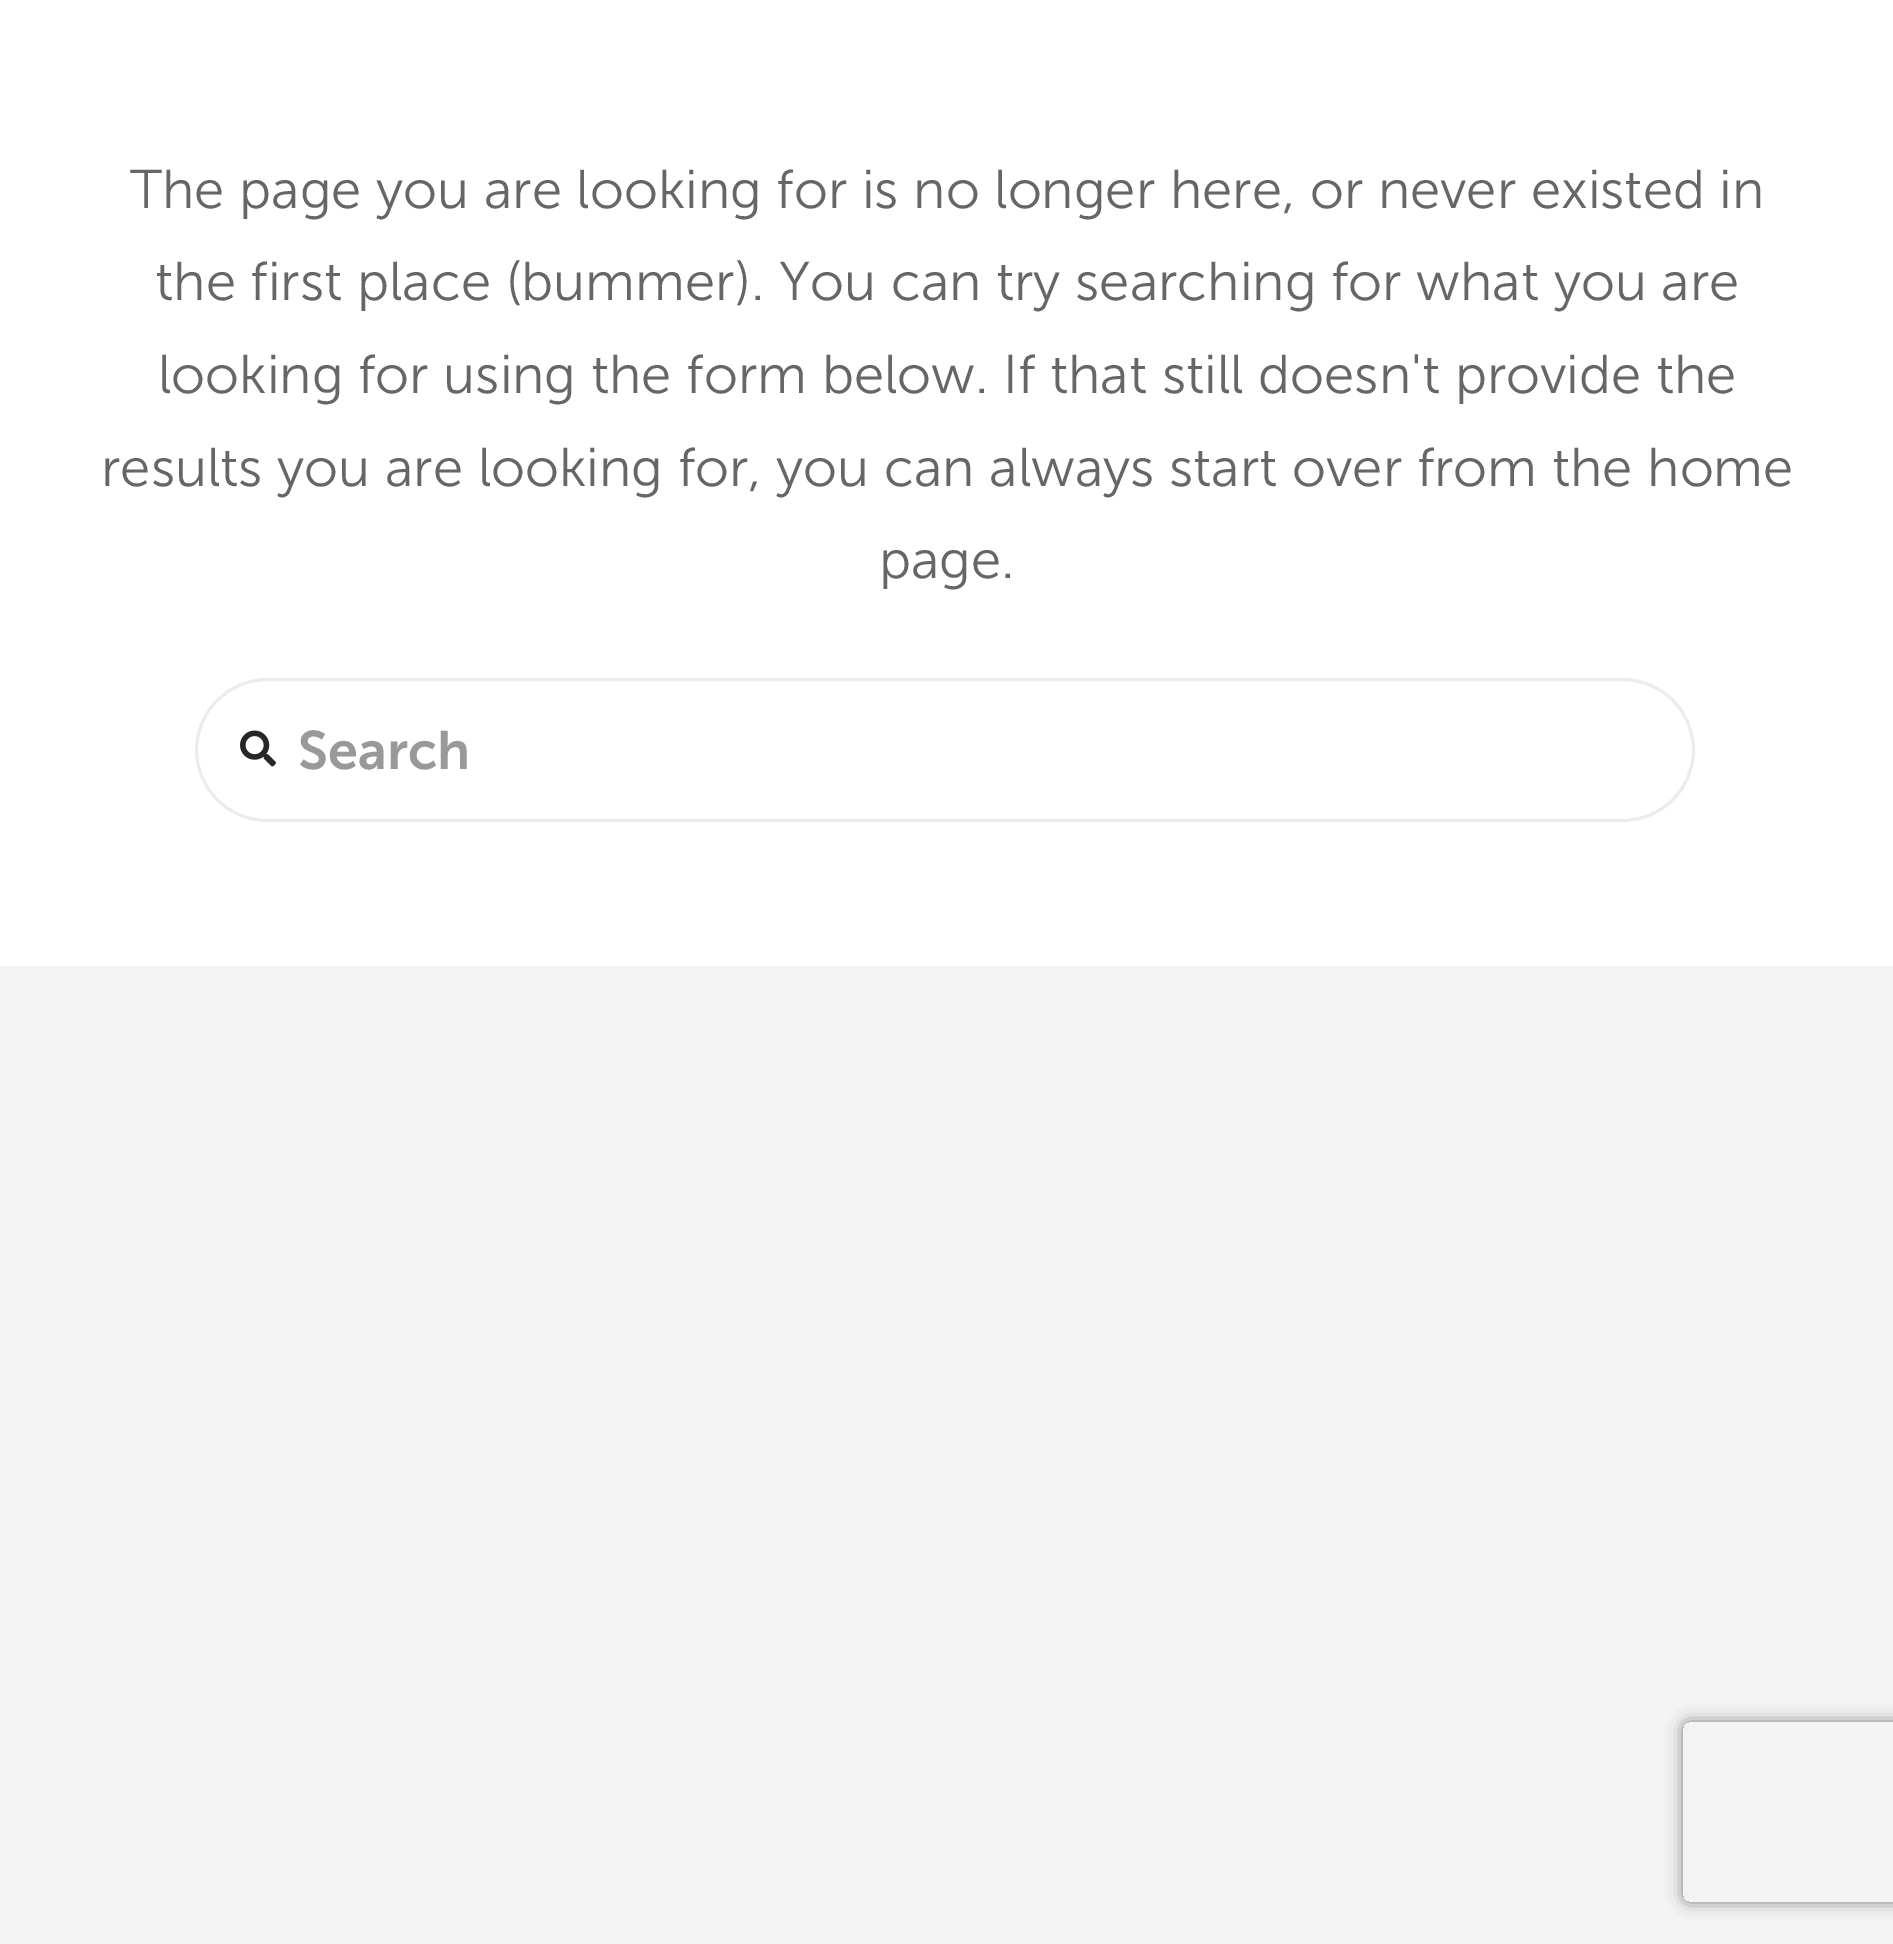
%!PS
<< /PageSize [1893 1944] /PageUsesTransparency true >> setpagedevice
/rgb { 3 { 255 div 3 1 roll } repeat setrgbcolor } def
/font { [ exch dup neg 0 0 3 -1 roll 0 0 ] selectfont } def
/text { moveto show } def
/alpha { dup .setfillconstantalpha .setstrokeconstantalpha } def
/roundrect { 5 dict begin { /r /h /w /y /x } { exch def } forall
  x r add y moveto x w add y 2 copy h add r arct x w add y h add x 1 index r arct
  x y h add x y r arct x y 2 copy exch w add exch r arct closepath end } def
/shadow { 12 dict begin { /a /b /q /h /w /y /x } { exch def } forall gsave /was 0 def
  9 -2 -9 { dup b mul 4 div /e exch def 1 sub .425 mul 2.718 exch exp 1 add a .99 .min exch div /now exch def
    1 1 now sub 1 was sub div sub alpha /was now def
    w h .min e 2 mul add 0 gt { x e sub y e sub w e 2 mul add h e 2 mul add
      q e add b .6 mul add w h .min 2 div e add .min 0 .max roundrect fill } if } for grestore end } def
/picture { 5 dict begin { /h /w /y /x /name } { exch def } forall
  gsave x y translate w h scale
  w h 8 [w 0 0 h 0 0] name (r) file false 3 colorimage grestore end } def
0 .pushpdf14devicefilter
0 1944 translate 1 -1 scale
4 setmiterlimit
243 243 243 rgb
0 0 1893 1944 rectfill
255 255 255 rgb
0 0 1893 966 rectfill
236 236 236 rgb
3 setlinewidth
196.5 679.5 1497 141 70.5 roundrect stroke
(img_01.rgb) 240 730 36 37 picture
gsave
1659 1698 moveto 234 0 rlineto 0 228 rlineto -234 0 rlineto closepath 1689 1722 moveto 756 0 rlineto 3.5 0 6 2.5 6 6 rcurveto 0 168 rlineto 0 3.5 -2.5 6 -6 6 rcurveto -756 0 rlineto -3.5 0 -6 -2.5 -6 -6 rcurveto 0 -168 rlineto 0 -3.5 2.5 -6 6 -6 rcurveto closepath eoclip newpath
128 128 128 rgb
1683 1722 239 180 6 7.5 1 shadow
grestore
/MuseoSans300-Light 54.5 font
102 102 102 rgb
(The page you are looking for is no longer here, or never existed in) 130 208 text
(the first place \(bummer\). You can try searching for what you are) 155 300 text
(looking for using the form below. If that still doesn't provide the) 158 393 text
(results you are looking for, you can always start over from the home) 101 486 text
(page.) 879 578 text
/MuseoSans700-SemiBold 54 font
153 153 153 rgb
(Search) 298 769 text
.poppdf14devicefilter showpage
